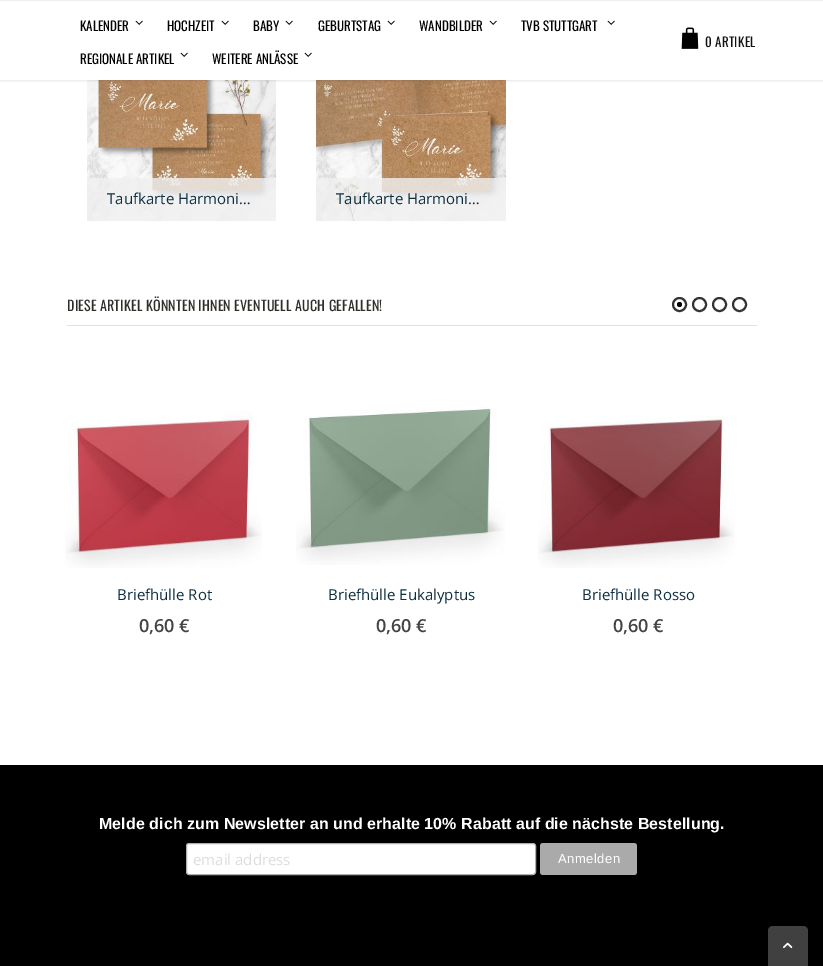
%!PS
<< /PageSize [823 966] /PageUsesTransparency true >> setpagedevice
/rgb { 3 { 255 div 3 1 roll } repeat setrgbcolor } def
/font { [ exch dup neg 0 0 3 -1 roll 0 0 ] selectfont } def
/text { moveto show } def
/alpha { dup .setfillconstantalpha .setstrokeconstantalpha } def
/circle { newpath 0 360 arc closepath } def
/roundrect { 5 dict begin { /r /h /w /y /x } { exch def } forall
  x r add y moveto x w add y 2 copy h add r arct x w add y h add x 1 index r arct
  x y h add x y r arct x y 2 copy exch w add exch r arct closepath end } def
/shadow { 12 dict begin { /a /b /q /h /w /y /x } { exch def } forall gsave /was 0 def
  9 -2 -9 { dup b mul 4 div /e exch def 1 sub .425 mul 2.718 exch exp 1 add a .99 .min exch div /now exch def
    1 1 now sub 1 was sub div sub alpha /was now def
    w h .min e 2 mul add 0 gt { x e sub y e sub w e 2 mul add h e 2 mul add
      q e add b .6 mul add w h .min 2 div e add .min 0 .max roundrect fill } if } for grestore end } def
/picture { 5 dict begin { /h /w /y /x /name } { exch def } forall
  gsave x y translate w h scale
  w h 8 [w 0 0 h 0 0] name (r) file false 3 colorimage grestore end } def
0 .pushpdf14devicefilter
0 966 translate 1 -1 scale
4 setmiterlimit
255 255 255 rgb
0 0 823 966 rectfill
(img_03.rgb) 87 80 189 141 picture
(img_04.rgb) 316 80 190 141 picture
0 0 0 rgb
0 1 823 80 0 1 0.1 shadow
255 255 255 rgb
0 1 823 79 rectfill
238 238 238 rgb
0 0 823 1 rectfill
(img_01.rgb) 135 20 8 5 picture
(img_01.rgb) 221 20 8 5 picture
(img_01.rgb) 285 20 8 5 picture
(img_01.rgb) 387 20 8 5 picture
(img_01.rgb) 489 20 8 5 picture
(img_01.rgb) 607 20 8 5 picture
(img_01.rgb) 180 52 8 5 picture
(img_01.rgb) 304 52 8 5 picture
(img_02.rgb) 681 27 18 22 picture
0.8 alpha
240 240 240 rgb
87 178 189 43 rectfill
316 178 190 43 rectfill
1 alpha
225 225 225 rgb
67 325 690 1 rectfill
51 51 51 rgb
2 setlinewidth
679.5 304.5 6.5 circle stroke
0 0 0 rgb
679.5 304.5 2.5 circle fill
51 51 51 rgb
699.5 304.5 6.5 circle stroke
719.5 304.5 6.5 circle stroke
739.5 304.5 6.5 circle stroke
(img_05.rgb) 65 410 197 158 picture
(img_06.rgb) 296 407 209 158 picture
(img_07.rgb) 538 415 197 153 picture
0 0 0 rgb
0 765 823 201 rectfill
255 255 255 rgb
186.5 843.5 349 31 2.5 roundrect gsave fill grestore
171 176 178 rgb
1 setlinewidth
stroke
170 170 170 rgb
540 843 97 32 3 roundrect fill
64 64 64 rgb
773 926 moveto 30 0 rlineto 3 0 5 2 5 5 rcurveto 0 35 rlineto -40 0 rlineto 0 -35 rlineto 0 -3 2 -5 5 -5 rcurveto closepath fill
(img_08.rgb) 783 942 10 7 picture
/Oswald-Regular 13 font
0 0 0 rgb
(KALENDER) 80 31 text
(HOCHZEIT) 167 31 text
(BABY) 253 31 text
(GEBURTSTAG) 318 31 text
(WANDBILDER) 419 31 text
(TVB STUTTGART) 521 31 text
(REGIONALE ARTIKEL) 80 64 text
(WEITERE ANLÄSSE) 212 64 text
17 17 17 rgb
705 47 moveto 0.25 0 (0 ARTIKEL) ashow
/OpenSans-Regular 15 font
14 47 64 rgb
(Taufkarte Harmoni…) 107 204 text
(Taufkarte Harmoni…) 336 204 text
/Oswald-Regular 14 font
48 46 42 rgb
67 311 moveto 0.15 0 (DIESE ARTIKEL KÖNNTEN IHNEN EVENTUELL AUCH GEFALLEN!) ashow
/OpenSans-Regular 15 font
14 47 64 rgb
(Briefhülle Rot) 117 600 text
/OpenSans-SemiBold 18 font
68 68 68 rgb
(0,60 €) 139 632 text
/OpenSans-Regular 15 font
14 47 64 rgb
(Briefhülle Eukalyptus) 328 600 text
/OpenSans-SemiBold 18 font
68 68 68 rgb
(0,60 €) 376 632 text
/OpenSans-Regular 15 font
14 47 64 rgb
(Briefhülle Rosso) 582 600 text
/OpenSans-SemiBold 18 font
68 68 68 rgb
(0,60 €) 613 632 text
/LiberationSans-Bold 16 font
255 255 255 rgb
99 829 moveto 0.07 0 (Melde dich zum Newsletter an und erhalte 10% Rabatt auf die nächste Bestellung.) ashow
/OpenSans-Regular 15 font
221 221 221 rgb
(email address) 193 865 text
/LiberationSans-Regular 13 font
255 255 255 rgb
558 863 moveto 0.5 0 (Anmelden) ashow
.poppdf14devicefilter showpage
